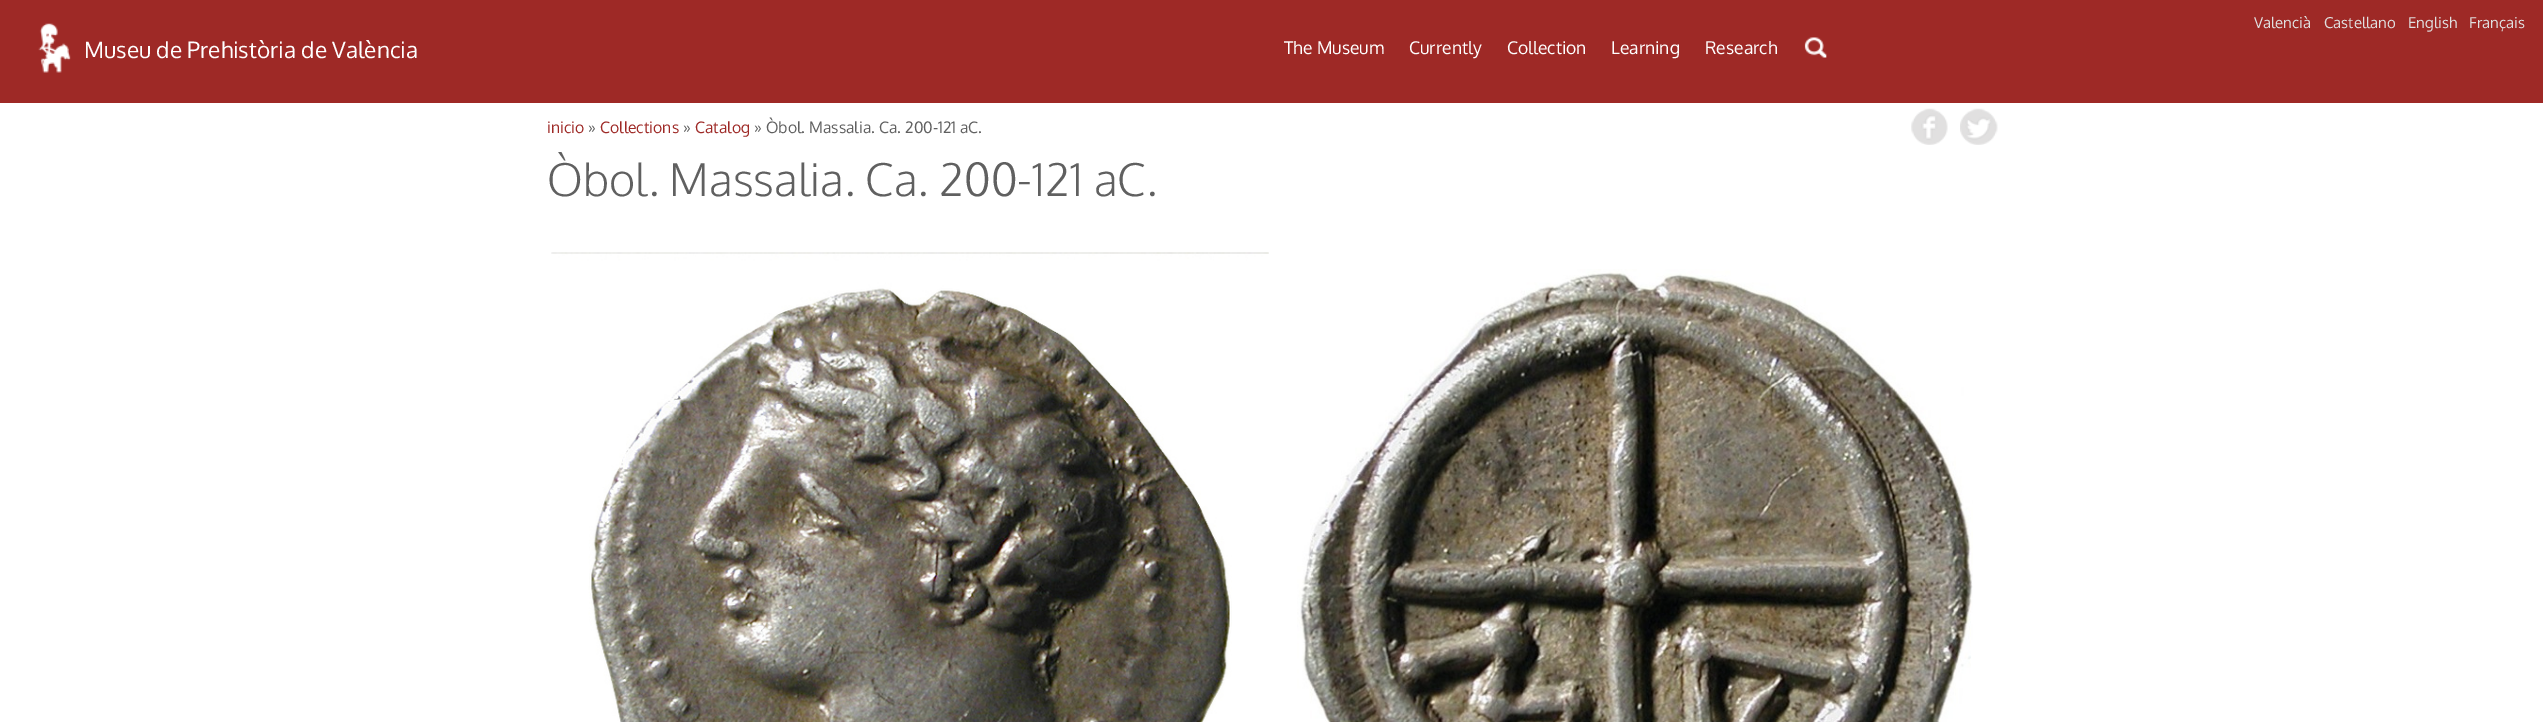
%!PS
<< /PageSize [2543 722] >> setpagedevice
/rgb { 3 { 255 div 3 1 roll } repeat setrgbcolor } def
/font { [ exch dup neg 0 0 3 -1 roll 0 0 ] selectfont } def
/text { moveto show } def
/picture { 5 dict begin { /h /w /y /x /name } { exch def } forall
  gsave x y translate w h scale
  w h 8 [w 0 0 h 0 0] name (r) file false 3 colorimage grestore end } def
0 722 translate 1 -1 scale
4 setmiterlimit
255 255 255 rgb
0 0 2543 722 rectfill
158 41 38 rgb
0 0 2543 103 rectfill
(img_01.rgb) 38 23 33 50 picture
(img_02.rgb) 1804 37 23 21 picture
(img_03.rgb) 1911 108 37 37 picture
(img_04.rgb) 1960 108 38 37 picture
(img_05.rgb) 551 252 718 470 picture
(img_06.rgb) 1297 269 676 453 picture
/Oxygen-Regular 15 font
224 224 224 rgb
(Valencià) 2254 28 text
(Castellano) 2324 28 text
(English) 2408 28 text
(Français) 2469 28 text
/Oxygen-Regular 22.5 font
255 255 255 rgb
(Museu de Prehistòria de València) 84 58 text
/Oxygen-Regular 17.5 font
(The Museum) 1284 54 text
(Currently) 1409 54 text
(Collection) 1507 54 text
(Learning) 1611 54 text
(Research) 1705 54 text
/Oxygen-Regular 15.75 font
158 41 38 rgb
(inicio) 547 133 text
96 96 96 rgb
(») 588 133 text
158 41 38 rgb
(Collections) 600 133 text
96 96 96 rgb
(») 683 133 text
158 41 38 rgb
(Catalog) 695 133 text
96 96 96 rgb
(» Òbol. Massalia. Ca. 200-121 aC.) 754 133 text
/Oxygen-Light 45 font
(Òbol. Massalia. Ca. 200-121 aC.) 547 196 text
showpage
